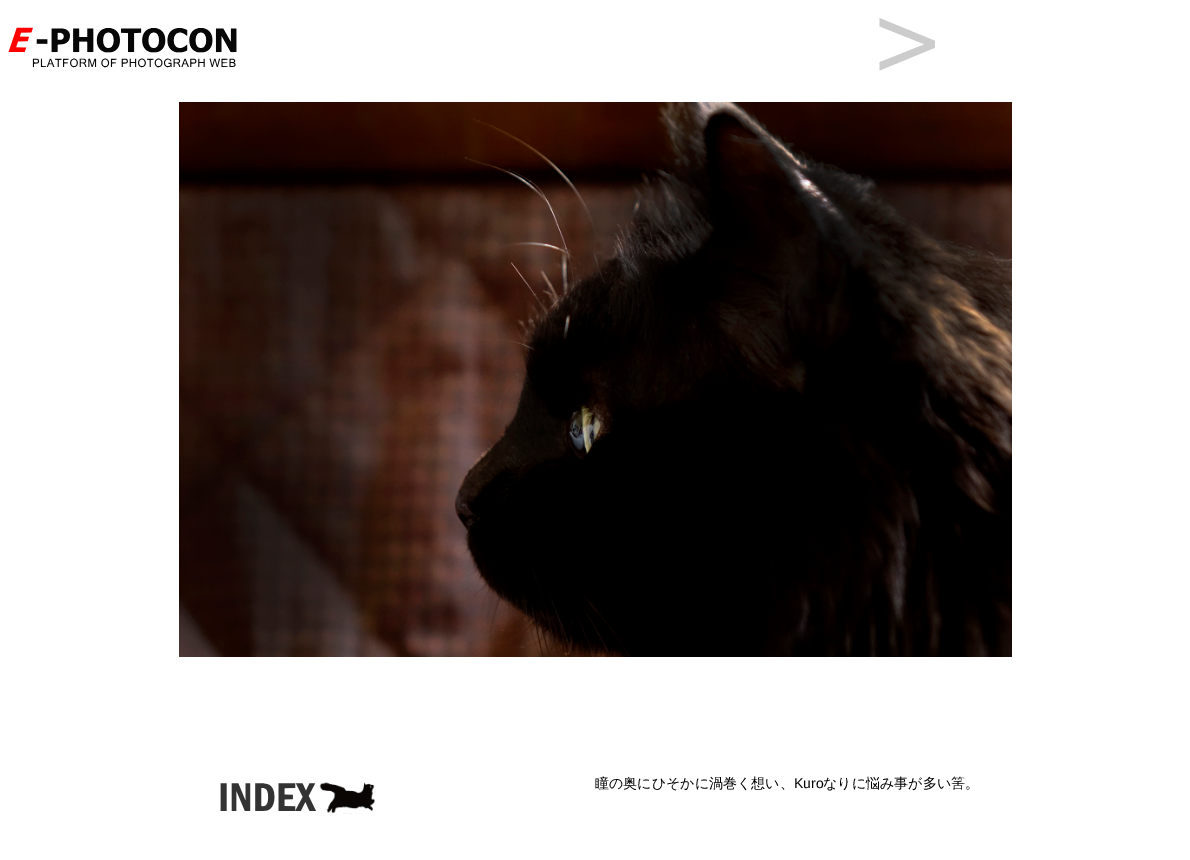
%!PS
<< /PageSize [1190 860] >> setpagedevice
/rgb { 3 { 255 div 3 1 roll } repeat setrgbcolor } def
/font { [ exch dup neg 0 0 3 -1 roll 0 0 ] selectfont } def
/text { moveto show } def
/picture { 5 dict begin { /h /w /y /x /name } { exch def } forall
  gsave x y translate w h scale
  w h 8 [w 0 0 h 0 0] name (r) file false 3 colorimage grestore end } def
0 860 translate 1 -1 scale
4 setmiterlimit
255 255 255 rgb
0 0 1190 860 rectfill
(img_01.rgb) 8 27 229 41 picture
(img_02.rgb) 879 18 56 53 picture
(img_03.rgb) 179 102 833 555 picture
(img_04.rgb) 220 782 155 32 picture
/WenQuanYiZenHei-Medium 14 font
0 0 0 rgb
(瞳の奥にひそかに渦巻く想い、) 595 788 text
/LiberationSans-Regular 14 font
(Kuro) 794 788 text
/WenQuanYiZenHei-Medium 14 font
(なりに悩み事が多い筈。) 823 788 text
showpage
